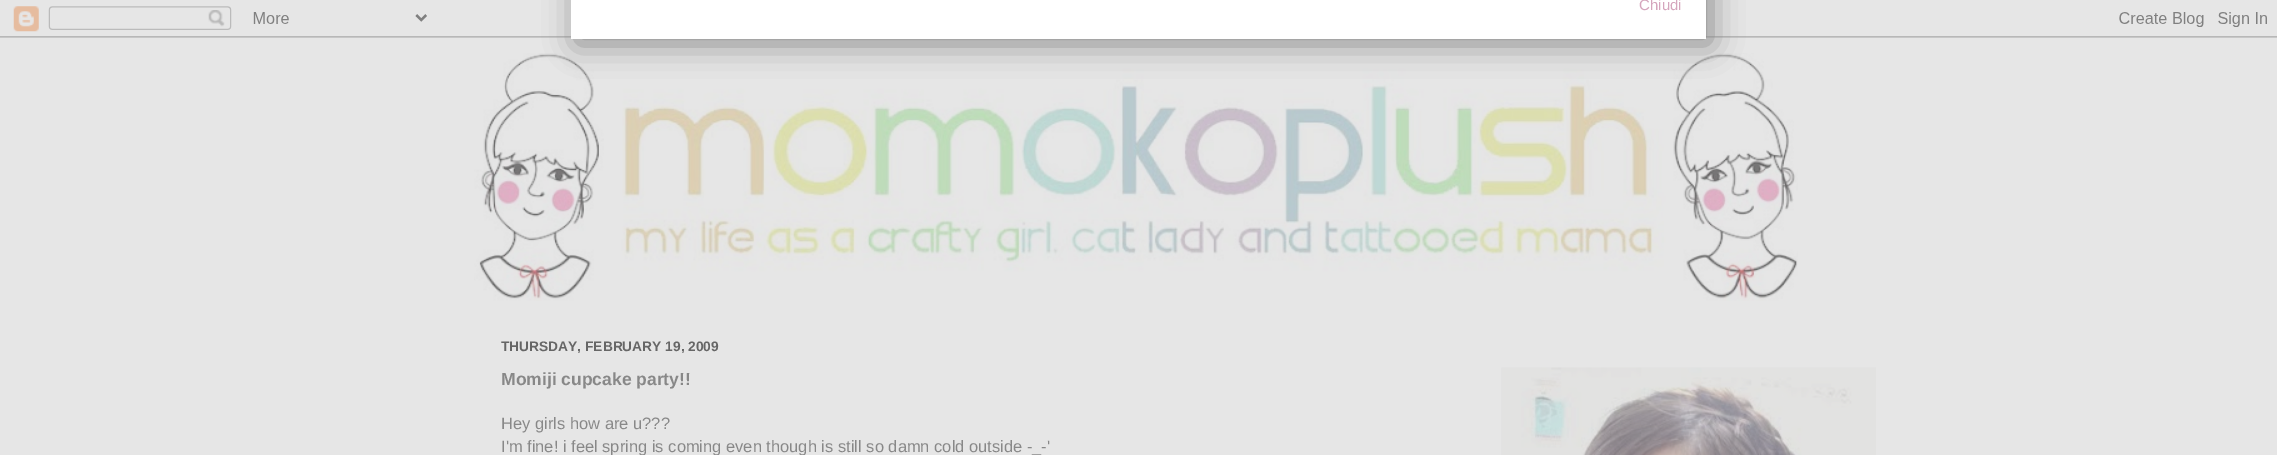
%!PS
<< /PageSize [2277 455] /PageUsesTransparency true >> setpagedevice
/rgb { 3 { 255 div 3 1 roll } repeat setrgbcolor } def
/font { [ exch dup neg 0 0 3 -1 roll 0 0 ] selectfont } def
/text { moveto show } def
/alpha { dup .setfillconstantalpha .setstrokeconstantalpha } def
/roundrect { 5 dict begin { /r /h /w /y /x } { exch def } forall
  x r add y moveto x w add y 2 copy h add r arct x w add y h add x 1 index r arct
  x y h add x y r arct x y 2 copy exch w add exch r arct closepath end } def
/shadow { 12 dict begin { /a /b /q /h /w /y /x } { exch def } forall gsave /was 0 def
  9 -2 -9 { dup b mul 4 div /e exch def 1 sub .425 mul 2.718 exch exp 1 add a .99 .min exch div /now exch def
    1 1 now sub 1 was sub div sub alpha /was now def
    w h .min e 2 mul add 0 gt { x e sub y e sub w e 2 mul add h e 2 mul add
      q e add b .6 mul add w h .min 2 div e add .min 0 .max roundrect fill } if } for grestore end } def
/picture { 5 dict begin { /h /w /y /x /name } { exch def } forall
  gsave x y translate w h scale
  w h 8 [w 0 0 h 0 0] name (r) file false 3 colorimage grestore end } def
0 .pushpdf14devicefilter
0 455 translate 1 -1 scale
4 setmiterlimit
230 230 230 rgb
0 0 2277 455 rectfill
(img_01.rgb) 0 6 2277 32 picture
(img_02.rgb) 474 53 1324 248 picture
136 136 136 rgb
576 -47 1135 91 0 15.5 1 shadow
255 255 255 rgb
571 0 1135 39 rectfill
(img_03.rgb) 1501 367 375 88 picture
/LiberationSans-Regular 15 font
213 166 189 rgb
(Chiudi) 1639 10 text
/LiberationSans-Bold 13.75 font
102 102 102 rgb
(THURSDAY, FEBRUARY 19, 2009) 501 351 text
/LiberationSans-Bold 17.5 font
136 136 136 rgb
(Momiji cupcake party!!) 501 385 text
/LiberationSans-Regular 16.5 font
(Hey girls how are u???) 501 429 text
(I'm fine! i feel spring is coming even though is still so damn cold outside -_-') 501 452 text
.poppdf14devicefilter showpage
